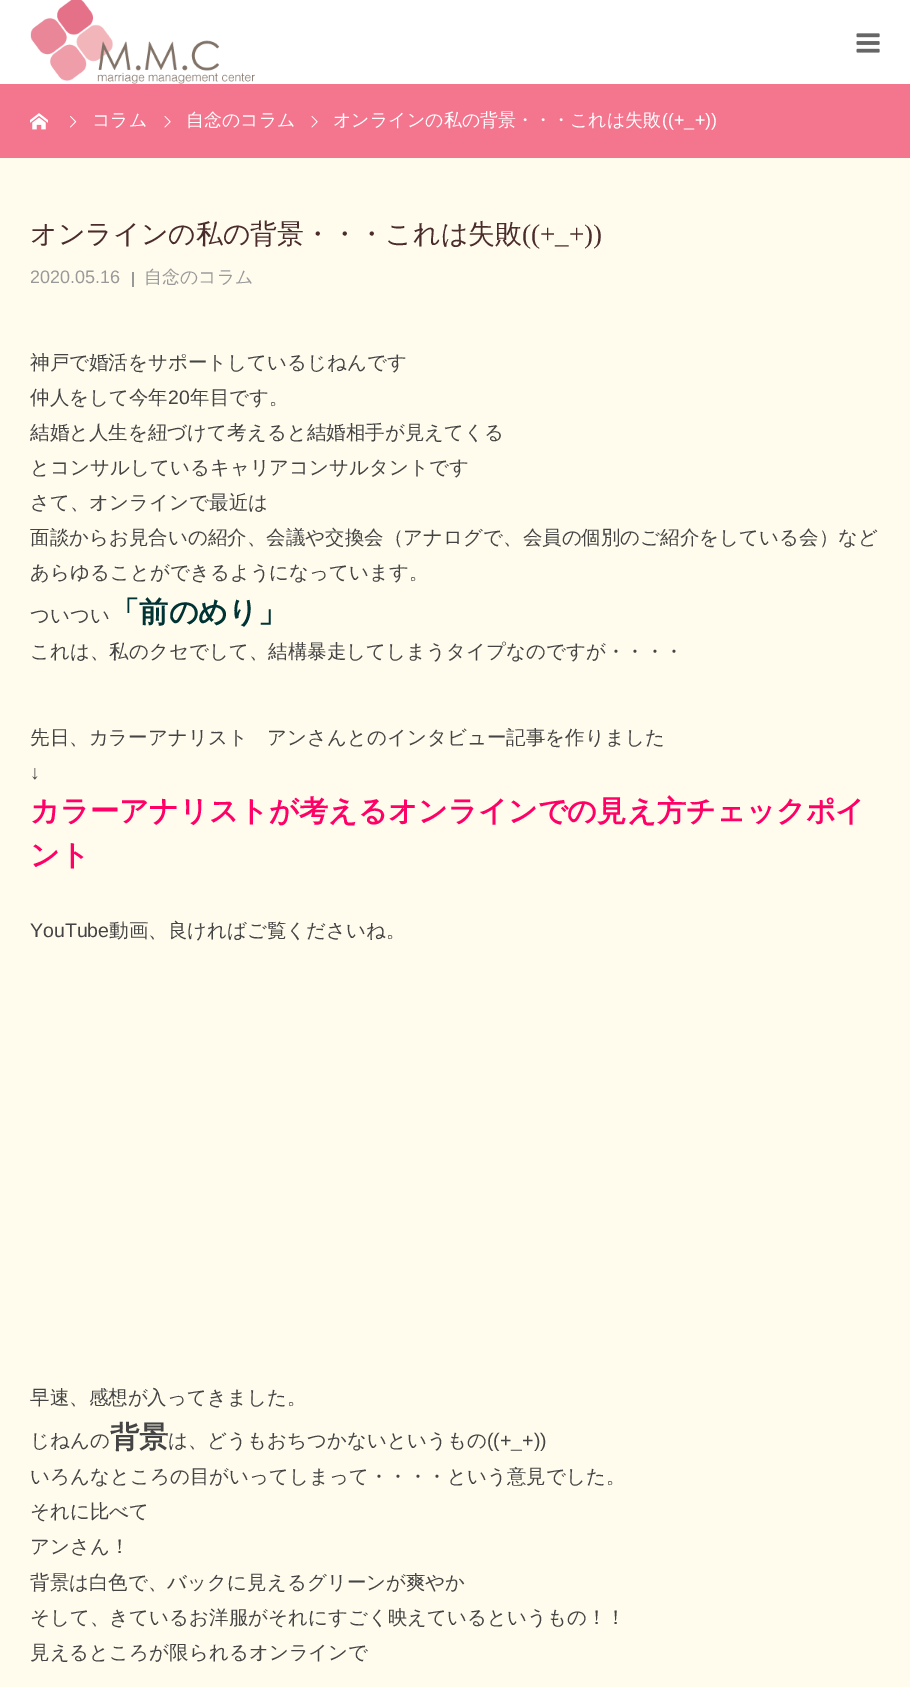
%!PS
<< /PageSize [910 1687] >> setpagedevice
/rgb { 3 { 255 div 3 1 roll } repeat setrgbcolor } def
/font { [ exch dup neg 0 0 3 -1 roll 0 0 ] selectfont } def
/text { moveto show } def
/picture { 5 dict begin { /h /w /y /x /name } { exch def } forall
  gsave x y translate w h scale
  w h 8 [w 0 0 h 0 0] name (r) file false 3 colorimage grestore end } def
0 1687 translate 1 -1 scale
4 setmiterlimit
255 255 255 rgb
0 0 910 1687 rectfill
(img_01.rgb) 30 0 225 84 picture
(img_02.rgb) 856 33 24 20 picture
255 252 237 rgb
0 158 910 1529 rectfill
244 117 142 rgb
0 84 910 74 rectfill
(img_03.rgb) 30 113 18 17 picture
(img_04.rgb) 70 116 7 12 picture
(img_05.rgb) 164 116 7 12 picture
(img_05.rgb) 311 116 7 12 picture
153 153 153 rgb
132 272 2 15 rectfill
/WenQuanYiZenHei-Medium 18 font
255 255 255 rgb
(コラム) 92 126 text
(自念のコラム) 186 126 text
(オンラインの私の背景・・・これは失敗) 333 126 text
/LiberationSans-Regular 18 font
(\(\(+_+\)\)) 662 126 text
/WenQuanYiZenHei-Medium 27 font
74 44 44 rgb
(オンラインの私の背景・・・これは失敗) 30 243 text
/LiberationSerif-Regular 27 font
(\(\(+_+\)\)) 522 243 text
/LiberationSans-Regular 18 font
153 153 153 rgb
(2020.05.16) 30 283 text
/WenQuanYiZenHei-Medium 18 font
(自念のコラム) 144 283 text
/WenQuanYiZenHei-Medium 19.5 font
68 68 68 rgb
(神戸で婚活をサポートしているじねんです) 30 369 text
(仲人をして今年) 30 404 text
/LiberationSans-Regular 19.5 font
(20) 168 404 text
/WenQuanYiZenHei-Medium 19.5 font
(年目です。) 190 404 text
(結婚と人生を紐づけて考えると結婚相手が見えてくる) 30 439 text
(とコンサルしているキャリアコンサルタントです) 30 474 text
(さて、オンラインで最近は) 30 509 text
(面談からお見合いの紹介、会議や交換会（アナログで、会員の個別のご紹介をしている会）など) 30 544 text
(あらゆることができるようになっています。) 30 579 text
(ついつい) 30 622 text
/WenQuanYiZenHei-Bold 29.25 font
0 51 51 rgb
(「前のめり」) 110 622 text
/WenQuanYiZenHei-Medium 19.5 font
68 68 68 rgb
(これは、私のクセでして、結構暴走してしまうタイプなのですが・・・・) 30 658 text
(先日、カラーアナリスト　アンさんとのインタビュー記事を作りました) 30 744 text
/LiberationSans-Regular 19.5 font
(↓) 30 779 text
/WenQuanYiZenHei-Bold 29.25 font
255 0 102 rgb
(カラーアナリストが考えるオンラインでの見え方チェックポイ) 30 821 text
(ント) 30 865 text
/LiberationSans-Regular 19.5 font
68 68 68 rgb
(YouTube) 30 937 text
/WenQuanYiZenHei-Medium 19.5 font
(動画、良ければご覧くださいね。) 109 937 text
(早速、感想が入ってきました。) 30 1404 text
(じねんの) 30 1447 text
/WenQuanYiZenHei-Bold 29.25 font
(背景) 110 1447 text
/WenQuanYiZenHei-Medium 19.5 font
(は、どうもおちつかないというもの) 168 1447 text
/LiberationSans-Regular 19.5 font
(\(\(+_+\)\)) 487 1447 text
/WenQuanYiZenHei-Medium 19.5 font
(いろんなところの目がいってしまって・・・・という意見でした。) 30 1483 text
(それに比べて) 30 1518 text
(アンさん！) 30 1553 text
(背景は白色で、バックに見えるグリーンが爽やか) 30 1589 text
(そして、きているお洋服がそれにすごく映えているというもの！！) 30 1624 text
(見えるところが限られるオンラインで) 30 1659 text
showpage
